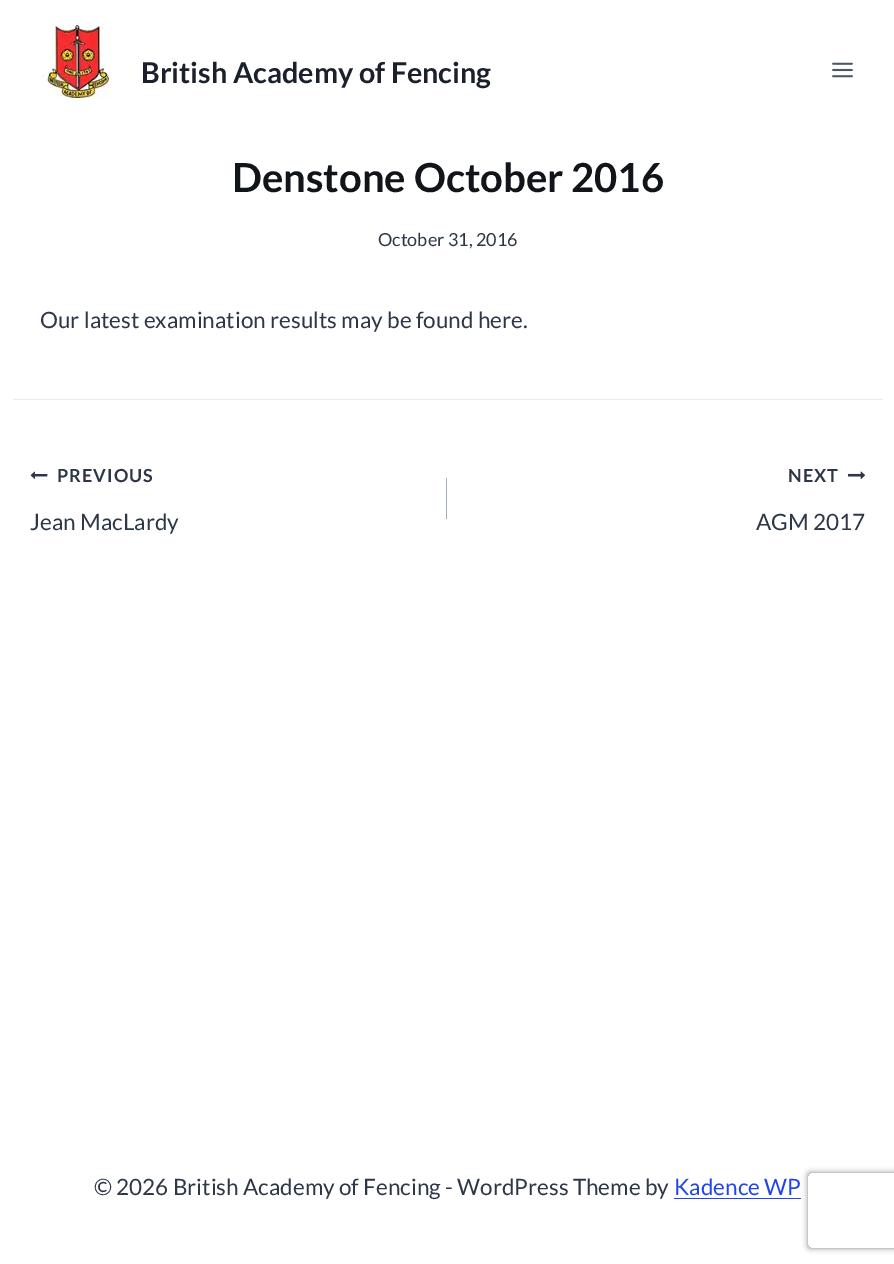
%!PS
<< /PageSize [894 1264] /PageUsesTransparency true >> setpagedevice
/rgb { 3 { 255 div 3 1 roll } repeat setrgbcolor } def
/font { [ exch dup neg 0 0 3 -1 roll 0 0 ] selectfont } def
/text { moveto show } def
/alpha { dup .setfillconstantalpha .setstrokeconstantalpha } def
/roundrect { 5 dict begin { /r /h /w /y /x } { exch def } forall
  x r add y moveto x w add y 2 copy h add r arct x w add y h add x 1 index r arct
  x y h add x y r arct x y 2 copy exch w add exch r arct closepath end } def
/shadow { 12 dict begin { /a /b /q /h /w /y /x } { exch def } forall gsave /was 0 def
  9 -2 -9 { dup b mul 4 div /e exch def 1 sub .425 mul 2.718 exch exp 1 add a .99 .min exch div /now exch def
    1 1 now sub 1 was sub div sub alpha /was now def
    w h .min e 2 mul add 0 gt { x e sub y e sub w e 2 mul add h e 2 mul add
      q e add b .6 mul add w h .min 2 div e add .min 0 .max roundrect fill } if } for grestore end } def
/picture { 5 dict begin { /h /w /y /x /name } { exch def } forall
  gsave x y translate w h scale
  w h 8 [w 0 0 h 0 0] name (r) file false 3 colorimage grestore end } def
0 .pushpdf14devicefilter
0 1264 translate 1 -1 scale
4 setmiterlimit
255 255 255 rgb
0 0 894 1264 rectfill
(img_01.rgb) 41 23 71 76 picture
(img_02.rgb) 832 62 21 16 picture
235 235 235 rgb
13 399 870 1 rectfill
(img_03.rgb) 30 471 18 8 picture
160 174 192 rgb
446 478 1 41 rectfill
(img_04.rgb) 848 471 17 8 picture
32 70 235 rgb
674 1198 127 1 rectfill
gsave
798 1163 moveto 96 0 rlineto 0 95 rlineto -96 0 rlineto closepath 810.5 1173 moveto 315 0 rlineto 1.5 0 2.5 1 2.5 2.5 rcurveto 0 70 rlineto 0 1.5 -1 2.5 -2.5 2.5 rcurveto -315 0 rlineto -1.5 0 -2.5 -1 -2.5 -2.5 rcurveto 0 -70 rlineto 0 -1.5 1 -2.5 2.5 -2.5 rcurveto closepath eoclip newpath
128 128 128 rgb
808 1173 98 75 2.5 3 1 shadow
grestore
/Lato-Bold 28.75 font
26 32 44 rgb
(British Academy of Fencing) 141 83 text
/Lato-Bold 40 font
17 20 25 rgb
(Denstone October 2016) 232 192 text
/Lato-Regular 18 font
45 55 72 rgb
(October 31, 2016) 378 246 text
/Lato-Regular 22.5 font
(Our latest examination results may be found here.) 40 328 text
/Lato-Bold 18 font
57 482 moveto 1 0 (PREVIOUS) ashow
/Lato-Regular 22.5 font
(Jean MacLardy) 30 530 text
/Lato-Bold 18 font
788 482 moveto 1 0 (NEXT) ashow
/Lato-Regular 22.5 font
(AGM 2017) 756 530 text
(© 2026 British Academy of Fencing - WordPress Theme by) 94 1195 text
32 70 235 rgb
(Kadence WP) 674 1195 text
.poppdf14devicefilter showpage
